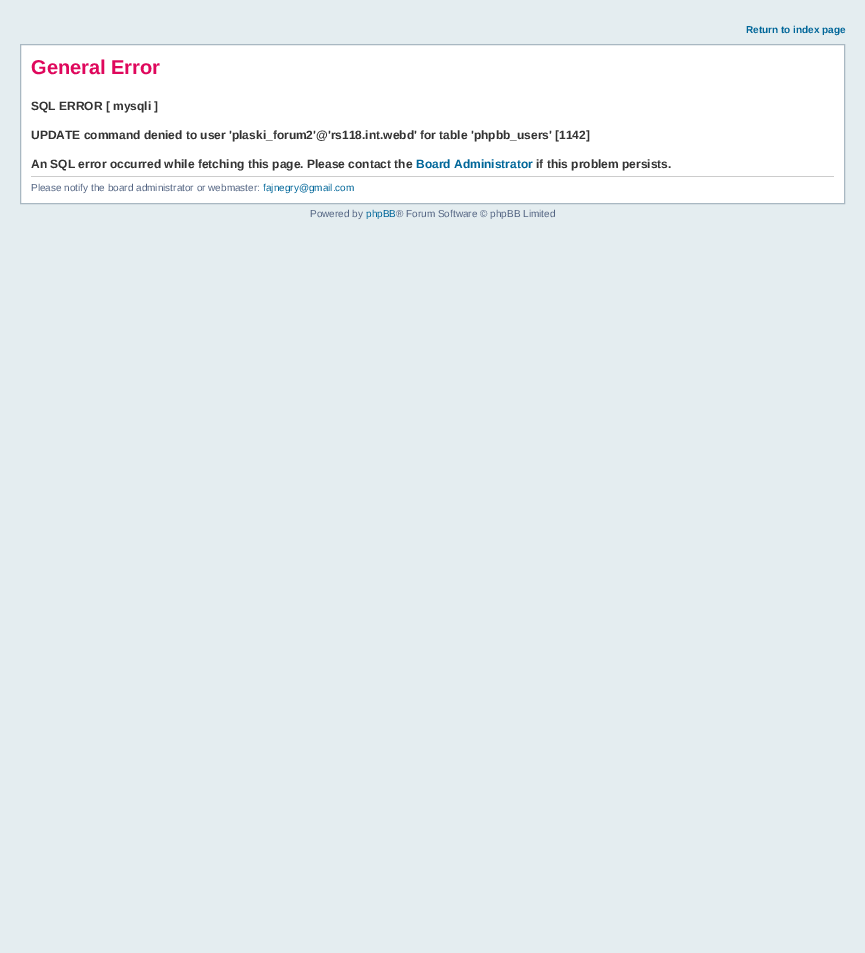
%!PS
<< /PageSize [865 953] >> setpagedevice
/rgb { 3 { 255 div 3 1 roll } repeat setrgbcolor } def
/font { [ exch dup neg 0 0 3 -1 roll 0 0 ] selectfont } def
/text { moveto show } def
0 953 translate 1 -1 scale
4 setmiterlimit
228 237 240 rgb
0 0 865 953 rectfill
255 255 255 rgb
20.5 44.5 moveto 824 0 rlineto 0 159 rlineto -824 0 rlineto closepath gsave fill grestore
169 184 194 rgb
stroke
204 204 204 rgb
31 176 803 1 rectfill
/LiberationSans-Bold 10 font
0 102 153 rgb
(Return to index page) 746 33 text
/LiberationSans-Bold 20 font
223 7 92 rgb
(General Error) 31 74 text
/LiberationSans-Bold 12 font
51 51 51 rgb
(SQL ERROR [ mysqli ]) 31 110 text
(UPDATE command denied to user 'plaski_forum2'@'rs118.int.webd' for table 'phpbb_users' [1142]) 31 139 text
(An SQL error occurred while fetching this page. Please contact the) 31 168 text
0 102 153 rgb
(Board Administrator) 416 168 text
51 51 51 rgb
(if this problem persists.) 536 168 text
/LiberationSans-Regular 10 font
83 100 130 rgb
(Please notify the board administrator or webmaster:) 31 191 text
0 102 153 rgb
(fajnegry@gmail.com) 263 191 text
83 100 130 rgb
(Powered by) 310 217 text
0 102 153 rgb
(phpBB) 366 217 text
83 100 130 rgb
(® Forum Software © phpBB Limited) 396 217 text
showpage
